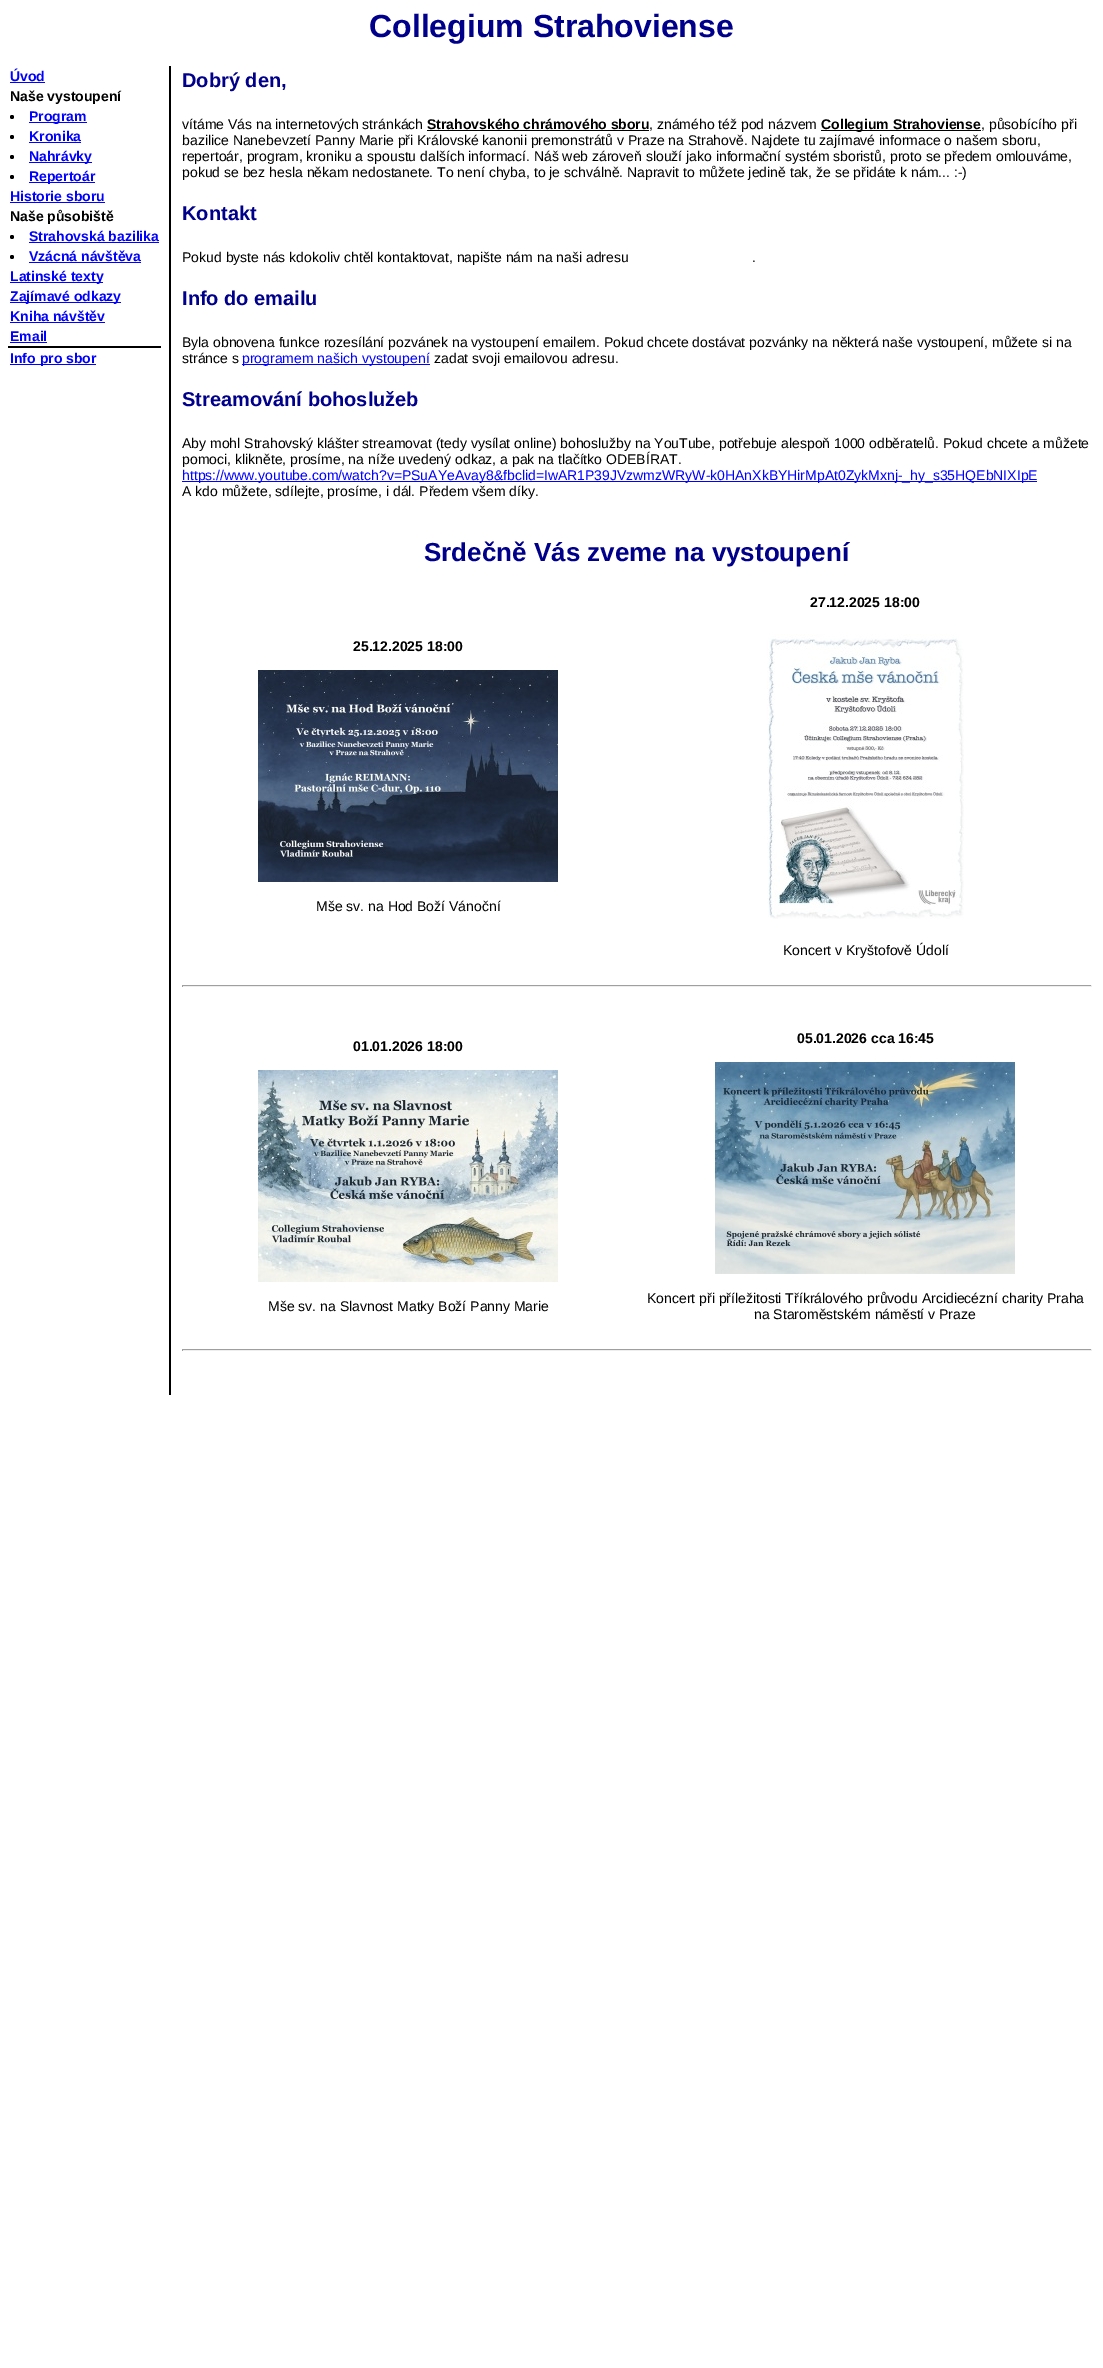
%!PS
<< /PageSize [1103 2368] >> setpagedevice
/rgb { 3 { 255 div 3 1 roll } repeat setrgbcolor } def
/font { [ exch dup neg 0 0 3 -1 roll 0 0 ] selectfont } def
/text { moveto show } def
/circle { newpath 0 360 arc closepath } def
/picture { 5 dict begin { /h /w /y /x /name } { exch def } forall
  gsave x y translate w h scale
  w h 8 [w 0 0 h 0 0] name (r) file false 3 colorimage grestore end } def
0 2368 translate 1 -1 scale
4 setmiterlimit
255 255 255 rgb
0 0 1103 2368 rectfill
0 0 255 rgb
10 82 35 1 rectfill
0 0 0 rgb
12 117 2 circle fill
0 0 255 rgb
29 122 58 1 rectfill
0 0 0 rgb
12 137 2 circle fill
0 0 255 rgb
29 142 52 1 rectfill
0 0 0 rgb
12 157 2 circle fill
0 0 255 rgb
29 162 63 1 rectfill
0 0 0 rgb
12 177 2 circle fill
0 0 255 rgb
29 182 66 1 rectfill
10 202 95 1 rectfill
0 0 0 rgb
12 237 2 circle fill
0 0 255 rgb
29 242 130 1 rectfill
0 0 0 rgb
12 257 2 circle fill
0 0 255 rgb
29 262 112 1 rectfill
10 282 93 1 rectfill
10 302 111 1 rectfill
10 322 95 1 rectfill
0 0 0 rgb
8 346 153 2 rectfill
0 0 255 rgb
10 342 37 1 rectfill
10 364 86 1 rectfill
0 0 0 rgb
169 66 2 1329 rectfill
427 130 222 1 rectfill
821 130 160 1 rectfill
0 0 255 rgb
242 364 188 1 rectfill
182 481 855 1 rectfill
(img_01.rgb) 258 670 300 212 picture
(img_02.rgb) 767 634 197 285 picture
159 159 159 rgb
182 985 910 1 rectfill
238 238 238 rgb
1091 985 1 2 rectfill
182 986 910 1 rectfill
159 159 159 rgb
182 985 1 2 rectfill
(img_03.rgb) 258 1070 300 212 picture
(img_04.rgb) 715 1062 300 212 picture
182 1349 910 1 rectfill
238 238 238 rgb
1091 1349 1 2 rectfill
182 1350 910 1 rectfill
159 159 159 rgb
182 1349 1 2 rectfill
/LiberationSans-Bold 32 font
0 0 139 rgb
(Collegium Strahoviense) 369 37 text
/LiberationSans-Bold 14 font
0 0 255 rgb
(Úvod) 10 81 text
0 0 0 rgb
(Naše vystoupení) 10 101 text
0 0 255 rgb
(Program) 29 121 text
(Kronika) 29 141 text
(Nahrávky) 29 161 text
(Repertoár) 29 181 text
(Historie sboru) 10 201 text
0 0 0 rgb
(Naše působiště) 10 221 text
0 0 255 rgb
(Strahovská bazilika) 29 241 text
(Vzácná návštěva) 29 261 text
(Latinské texty) 10 281 text
(Zajímavé odkazy) 10 301 text
(Kniha návštěv) 10 321 text
(Email) 10 341 text
(Info pro sbor) 10 363 text
/LiberationSans-Bold 20 font
0 0 139 rgb
(Dobrý den,) 182 87 text
/LiberationSans-Regular 14 font
0 0 0 rgb
(vítáme Vás na internetových stránkách) 182 129 text
/LiberationSans-Bold 14 font
(Strahovského chrámového sboru) 427 129 text
/LiberationSans-Regular 14 font
(, známého též pod názvem) 649 129 text
/LiberationSans-Bold 14 font
(Collegium Strahoviense) 821 129 text
/LiberationSans-Regular 14 font
(, působícího při) 981 129 text
(bazilice Nanebevzetí Panny Marie při Královské kanonii premonstrátů v Praze na Strahově. Najdete tu zajímavé informace o našem sboru,) 182 145 text
(repertoár, program, kroniku a spoustu dalších informací. Náš web zároveň slouží jako informační systém sboristů, proto se předem omlouváme,) 182 161 text
(pokud se bez hesla někam nedostanete. To není chyba, to je schválně. Napravit to můžete jedině tak, že se přidáte k nám... :-\)) 182 177 text
/LiberationSans-Bold 20 font
0 0 139 rgb
(Kontakt) 182 220 text
/LiberationSans-Regular 14 font
0 0 0 rgb
(Pokud byste nás kdokoliv chtěl kontaktovat, napište nám na naši adresu) 182 262 text
(.) 752 262 text
/LiberationSans-Bold 20 font
0 0 139 rgb
(Info do emailu) 182 305 text
/LiberationSans-Regular 14 font
0 0 0 rgb
(Byla obnovena funkce rozesílání pozvánek na vystoupení emailem. Pokud chcete dostávat pozvánky na některá naše vystoupení, můžete si na) 182 347 text
(stránce s) 182 363 text
0 0 255 rgb
(programem našich vystoupení) 242 363 text
0 0 0 rgb
(zadat svoji emailovou adresu.) 434 363 text
/LiberationSans-Bold 20 font
0 0 139 rgb
(Streamování bohoslužeb) 182 406 text
/LiberationSans-Regular 14 font
0 0 0 rgb
(Aby mohl Strahovský klášter streamovat \(tedy vysílat online\) bohoslužby na YouTube, potřebuje alespoň 1000 odběratelů. Pokud chcete a můžete) 182 448 text
(pomoci, klikněte, prosíme, na níže uvedený odkaz, a pak na tlačítko ODEBÍRAT.) 182 464 text
0 0 255 rgb
(https://www.youtube.com/watch?v=PSuAYeAvay8&fbclid=IwAR1P39JVzwmzWRyW-k0HAnXkBYHirMpAt0ZykMxnj-_hy_s35HQEbNIXIpE) 182 480 text
0 0 0 rgb
(A kdo můžete, sdílejte, prosíme, i dál. Předem všem díky.) 182 496 text
/LiberationSans-Bold 26 font
0 0 139 rgb
(Srdečně Vás zveme na vystoupení) 424 561 text
/LiberationSans-Bold 14 font
0 0 0 rgb
(25.12.2025 18:00) 353 651 text
/LiberationSans-Regular 14 font
(Mše sv. na Hod Boží Vánoční) 316 911 text
/LiberationSans-Bold 14 font
(27.12.2025 18:00) 810 607 text
/LiberationSans-Regular 14 font
(Koncert v Kryštofově Údolí) 783 955 text
/LiberationSans-Bold 14 font
(01.01.2026 18:00) 353 1051 text
/LiberationSans-Regular 14 font
(Mše sv. na Slavnost Matky Boží Panny Marie) 268 1311 text
/LiberationSans-Bold 14 font
(05.01.2026 cca 16:45) 797 1043 text
/LiberationSans-Regular 14 font
(Koncert při příležitosti Tříkrálového průvodu Arcidiecézní charity Praha) 647 1303 text
(na Staroměstském náměstí v Praze) 754 1319 text
showpage
